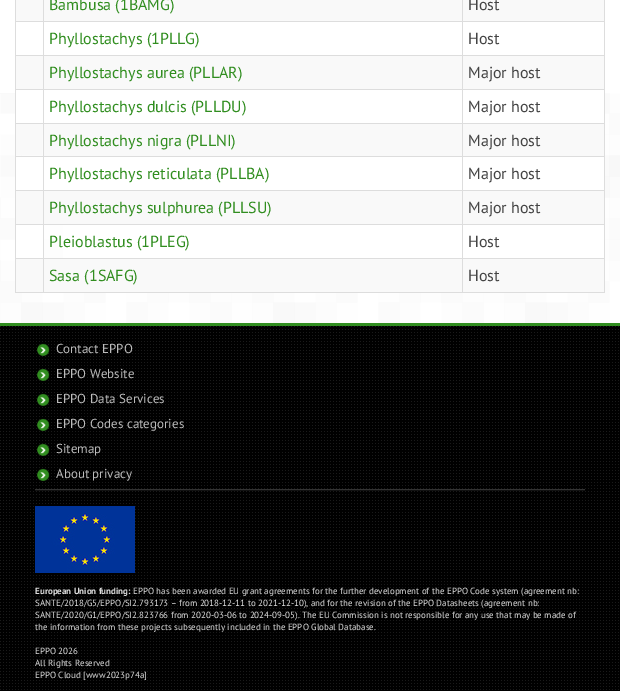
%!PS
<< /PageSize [620 691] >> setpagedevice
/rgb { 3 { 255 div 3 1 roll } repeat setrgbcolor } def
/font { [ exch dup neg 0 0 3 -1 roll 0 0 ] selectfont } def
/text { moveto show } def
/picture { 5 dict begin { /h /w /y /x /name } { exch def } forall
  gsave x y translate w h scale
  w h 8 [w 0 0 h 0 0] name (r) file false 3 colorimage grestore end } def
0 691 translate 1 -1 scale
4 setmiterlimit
255 255 255 rgb
0 0 620 691 rectfill
(img_01.rgb) 0 93 620 230 picture
221 221 221 rgb
604 0 1 293 rectfill
15 292 590 1 rectfill
15 0 1 293 rectfill
249 249 249 rgb
16 0 27 21 rectfill
44 0 418 21 rectfill
221 221 221 rgb
462 21 143 1 rectfill
462 55 143 1 rectfill
462 89 143 1 rectfill
462 123 143 1 rectfill
462 156 143 1 rectfill
462 190 143 1 rectfill
462 224 143 1 rectfill
462 258 143 1 rectfill
462 258 1 35 rectfill
43 258 420 1 rectfill
462 224 1 35 rectfill
43 224 420 1 rectfill
462 190 1 35 rectfill
43 190 420 1 rectfill
462 156 1 35 rectfill
43 156 420 1 rectfill
462 123 1 34 rectfill
43 123 420 1 rectfill
462 89 1 35 rectfill
43 89 420 1 rectfill
462 55 1 35 rectfill
43 55 420 1 rectfill
462 21 1 35 rectfill
43 21 420 1 rectfill
43 258 1 35 rectfill
15 258 29 1 rectfill
43 224 1 35 rectfill
15 224 29 1 rectfill
43 190 1 35 rectfill
15 190 29 1 rectfill
43 156 1 35 rectfill
15 156 29 1 rectfill
43 123 1 34 rectfill
15 123 29 1 rectfill
43 89 1 35 rectfill
15 89 29 1 rectfill
43 55 1 35 rectfill
15 55 29 1 rectfill
43 21 1 35 rectfill
15 21 29 1 rectfill
43 0 1 22 rectfill
249 249 249 rgb
463 0 141 21 rectfill
221 221 221 rgb
462 0 1 22 rectfill
249 249 249 rgb
16 56 27 33 rectfill
44 56 418 33 rectfill
463 56 141 33 rectfill
255 255 255 rgb
16 93 27 30 rectfill
44 93 418 30 rectfill
463 93 141 30 rectfill
249 249 249 rgb
16 124 26 31 rectfill
44 124 418 32 rectfill
463 124 141 32 rectfill
255 255 255 rgb
16 157 27 33 rectfill
44 157 418 33 rectfill
463 157 141 33 rectfill
249 249 249 rgb
16 191 27 33 rectfill
44 191 418 33 rectfill
463 191 141 33 rectfill
255 255 255 rgb
16 225 27 33 rectfill
63 225 399 33 rectfill
463 225 141 33 rectfill
249 249 249 rgb
16 259 27 33 rectfill
44 259 418 33 rectfill
463 259 141 33 rectfill
(img_02.rgb) 0 326 620 365 picture
49 142 32 rgb
0 323 620 3 rectfill
(img_03.rgb) 37 343 13 13 picture
(img_04.rgb) 37 368 13 13 picture
(img_05.rgb) 37 393 13 13 picture
(img_03.rgb) 37 418 13 13 picture
(img_04.rgb) 37 443 13 13 picture
(img_05.rgb) 37 468 13 13 picture
51 51 51 rgb
35 489 550 1 rectfill
17 17 17 rgb
35 490 550 1 rectfill
(img_06.rgb) 35 506 100 67 picture
/PTSans-Regular 16 font
49 142 32 rgb
(Bambusa \(1BAMG\)) 49 10 text
68 68 68 rgb
(Host) 468 10 text
49 142 32 rgb
(Phyllostachys \(1PLLG\)) 49 44 text
68 68 68 rgb
(Host) 468 44 text
49 142 32 rgb
(Phyllostachys aurea \(PLLAR\)) 49 78 text
68 68 68 rgb
(Major host) 468 78 text
49 142 32 rgb
(Phyllostachys dulcis \(PLLDU\)) 49 112 text
68 68 68 rgb
(Major host) 468 112 text
49 142 32 rgb
(Phyllostachys nigra \(PLLNI\)) 49 146 text
68 68 68 rgb
(Major host) 468 146 text
49 142 32 rgb
(Phyllostachys reticulata \(PLLBA\)) 49 179 text
68 68 68 rgb
(Major host) 468 179 text
49 142 32 rgb
(Phyllostachys sulphurea \(PLLSU\)) 49 213 text
68 68 68 rgb
(Major host) 468 213 text
49 142 32 rgb
(Pleioblastus \(1PLEG\)) 49 247 text
68 68 68 rgb
(Host) 468 247 text
49 142 32 rgb
(Sasa \(1SAFG\)) 49 281 text
68 68 68 rgb
(Host) 468 281 text
/PTSans-Regular 13 font
187 187 187 rgb
(Contact EPPO) 56 353 text
(EPPO Website) 56 378 text
(EPPO Data Services) 56 403 text
(EPPO Codes categories) 56 428 text
(Sitemap) 56 453 text
(About privacy) 56 478 text
/PTSans-Bold 9 font
221 221 221 rgb
(European Union funding:) 35 594 text
/PTSans-Regular 9 font
(EPPO has been awarded EU grant agreements for the further development of the EPPO Code system \(agreement nb:) 133 594 text
(SANTE/2018/G5/EPPO/SI2.793173 – from 2018-12-11 to 2021-12-10\), and for the revision of the EPPO Datasheets \(agreement nb:) 35 606 text
(SANTE/2020/G1/EPPO/SI2.823766 from 2020-03-06 to 2024-09-05\). The EU Commission is not responsible for any use that may be made of) 35 618 text
(the information from these projects subsequently included in the EPPO Global Database.) 35 630 text
(EPPO 2026) 35 654 text
(All Rights Reserved) 35 666 text
(EPPO Cloud [www2023p74a]) 35 678 text
showpage
